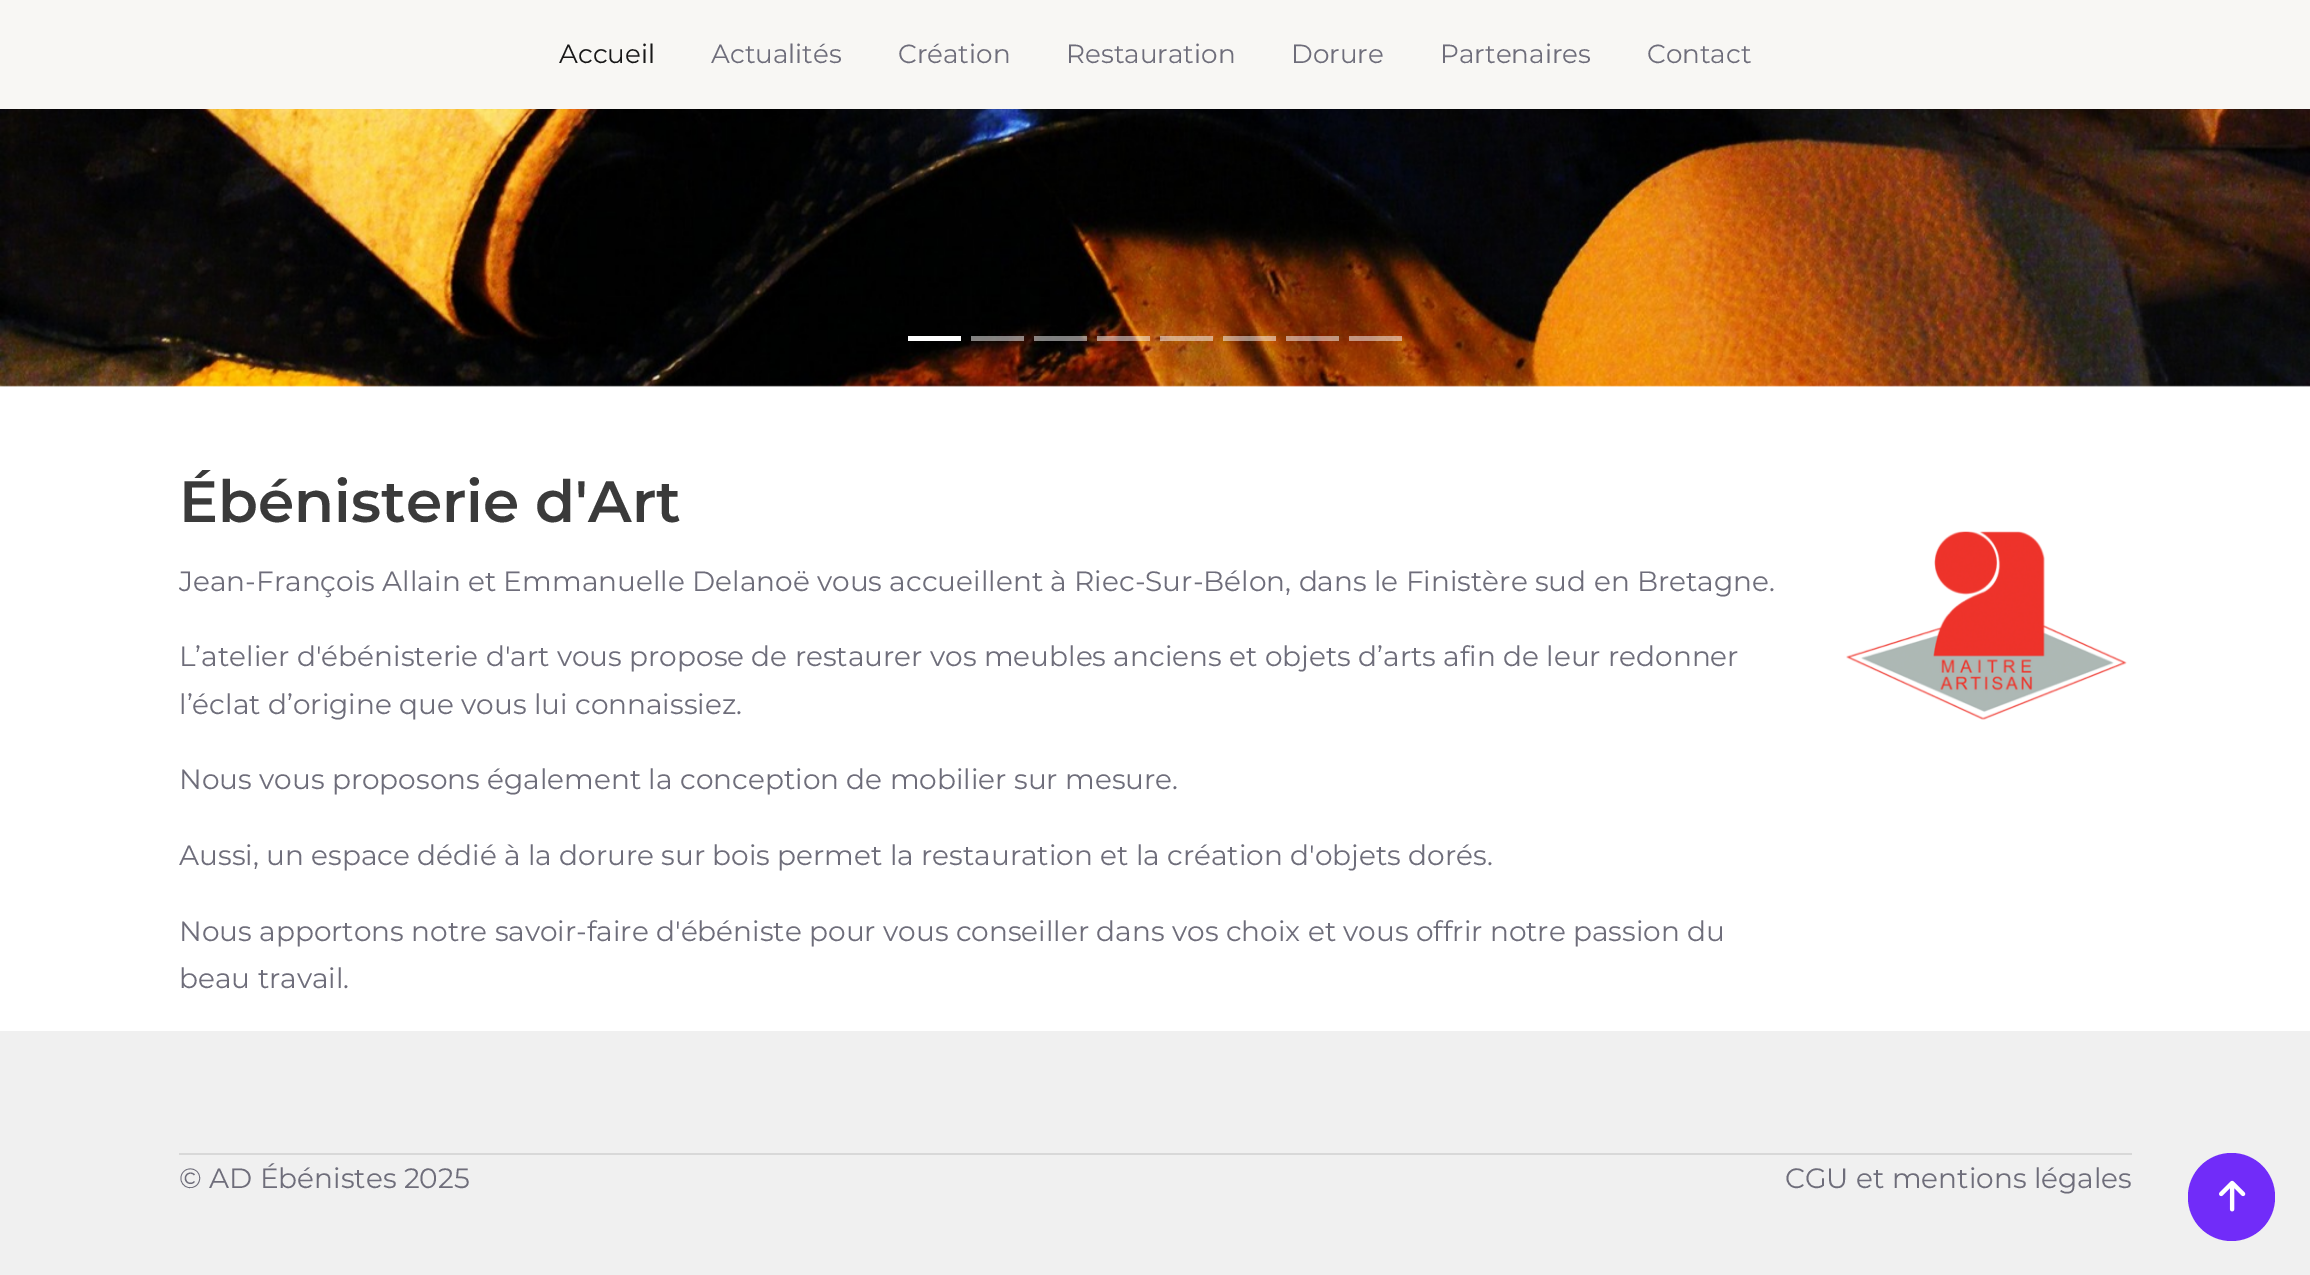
%!PS
<< /PageSize [2310 1275] /PageUsesTransparency true >> setpagedevice
/rgb { 3 { 255 div 3 1 roll } repeat setrgbcolor } def
/font { [ exch dup neg 0 0 3 -1 roll 0 0 ] selectfont } def
/text { moveto show } def
/alpha { dup .setfillconstantalpha .setstrokeconstantalpha } def
/roundrect { 5 dict begin { /r /h /w /y /x } { exch def } forall
  x r add y moveto x w add y 2 copy h add r arct x w add y h add x 1 index r arct
  x y h add x y r arct x y 2 copy exch w add exch r arct closepath end } def
/picture { 5 dict begin { /h /w /y /x /name } { exch def } forall
  gsave x y translate w h scale
  w h 8 [w 0 0 h 0 0] name (r) file false 3 colorimage grestore end } def
0 .pushpdf14devicefilter
0 1275 translate 1 -1 scale
4 setmiterlimit
255 255 255 rgb
0 0 2310 1275 rectfill
248 247 244 rgb
0 0 2310 109 rectfill
(img_01.rgb) 0 109 2310 278 picture
255 255 255 rgb
908 336 53 5 rectfill
0.5 alpha
971 336 53 5 rectfill
1034 336 53 5 rectfill
1097 336 53 5 rectfill
1160 336 53 5 rectfill
1223 336 53 5 rectfill
1286 336 53 5 rectfill
1349 336 53 5 rectfill
1 alpha
(img_02.rgb) 1846 531 281 189 picture
240 240 240 rgb
0 1031 2310 244 rectfill
216 216 216 rgb
179 1153 1953 2 rectfill
113 44 249 rgb
2188 1153 87 88 43.5 roundrect fill
(img_03.rgb) 2219 1180 27 32 picture
/Montserrat-Regular 26.25 font
24 24 24 rgb
(Accueil) 559 63 text
110 109 122 rgb
(Actualités) 711 63 text
(Création) 898 63 text
(Restauration) 1066 63 text
(Dorure) 1291 63 text
(Partenaires) 1440 63 text
(Contact) 1647 63 text
/Montserrat-SemiBold 58.25 font
58 58 58 rgb
(Ébénisterie d'Art) 179 522 text
/Montserrat-Regular 28 font
110 109 122 rgb
(Jean-François Allain et Emmanuelle Delanoë vous accueillent à Riec-Sur-Bélon, dans le Finistère sud en Bretagne.) 179 591 text
(L’atelier d'ébénisterie d'art vous propose de restaurer vos meubles anciens et objets d’arts afin de leur redonner) 179 666 text
(l’éclat d’origine que vous lui connaissiez.) 179 714 text
(Nous vous proposons également la conception de mobilier sur mesure.) 179 789 text
(Aussi, un espace dédié à la dorure sur bois permet la restauration et la création d'objets dorés.) 179 865 text
(Nous apportons notre savoir-faire d'ébéniste pour vous conseiller dans vos choix et vous offrir notre passion du) 179 941 text
(beau travail.) 179 988 text
(© AD Ébénistes 2025) 179 1188 text
(CGU et mentions légales) 1785 1188 text
.poppdf14devicefilter showpage
